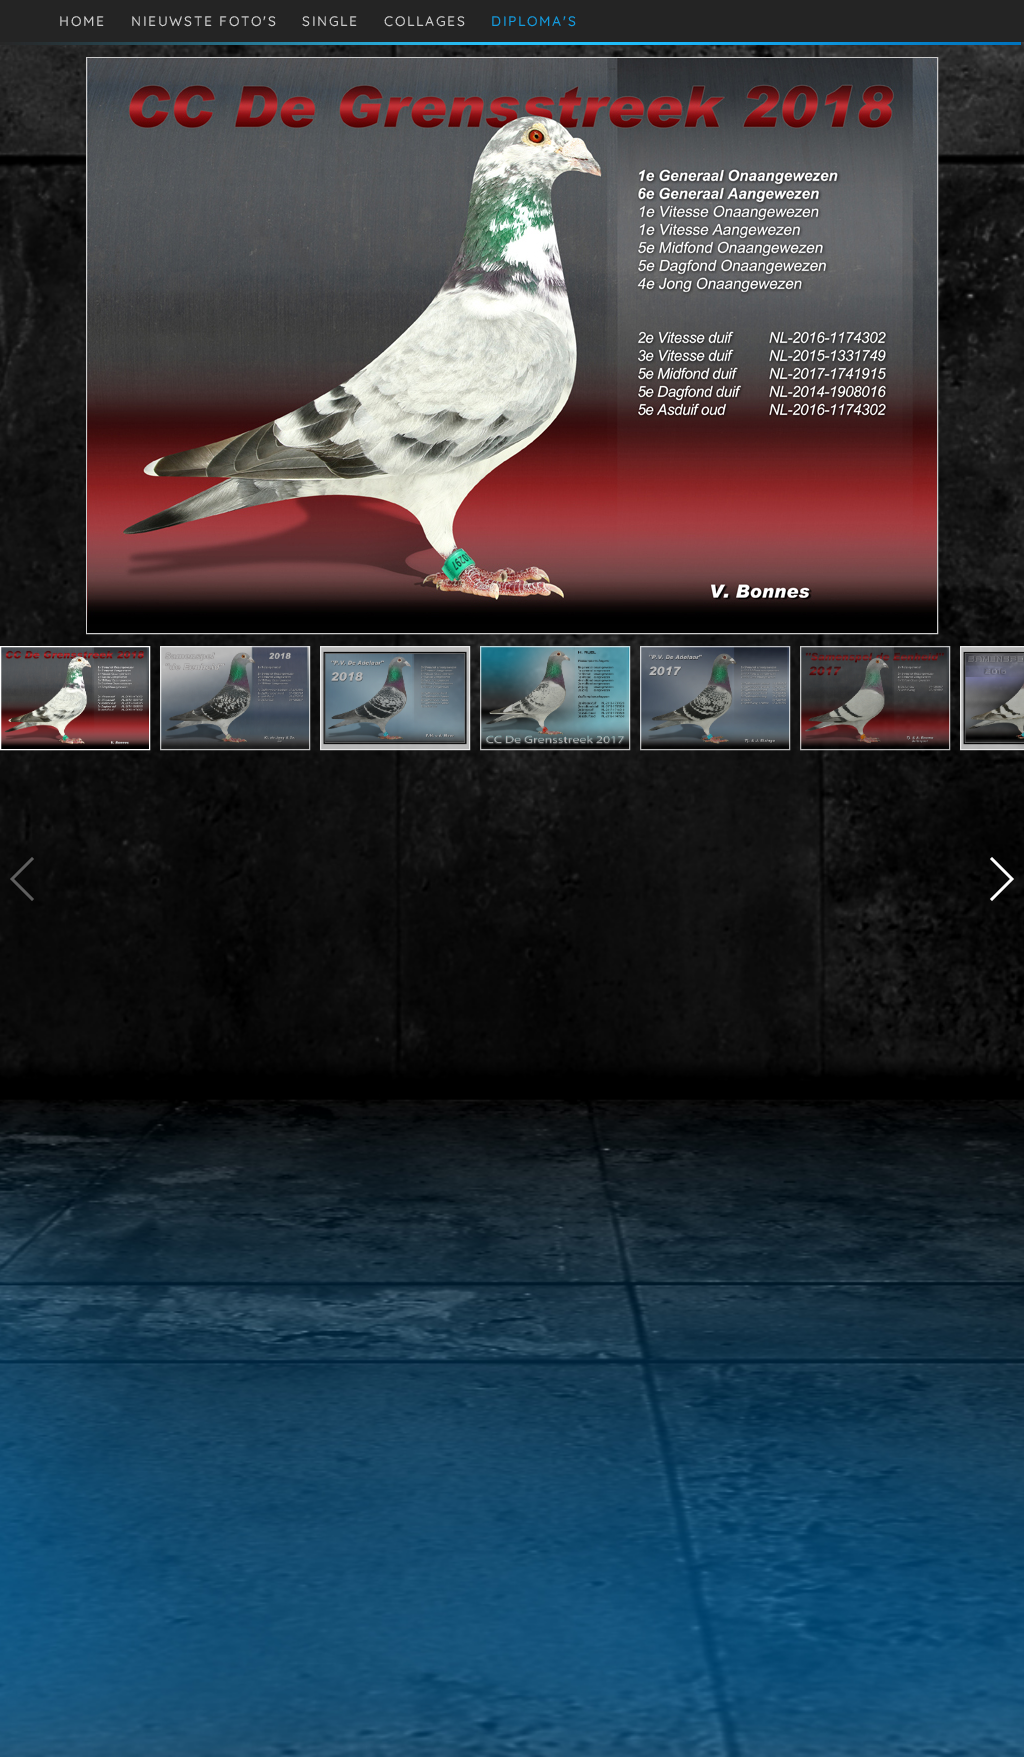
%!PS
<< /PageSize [1024 1757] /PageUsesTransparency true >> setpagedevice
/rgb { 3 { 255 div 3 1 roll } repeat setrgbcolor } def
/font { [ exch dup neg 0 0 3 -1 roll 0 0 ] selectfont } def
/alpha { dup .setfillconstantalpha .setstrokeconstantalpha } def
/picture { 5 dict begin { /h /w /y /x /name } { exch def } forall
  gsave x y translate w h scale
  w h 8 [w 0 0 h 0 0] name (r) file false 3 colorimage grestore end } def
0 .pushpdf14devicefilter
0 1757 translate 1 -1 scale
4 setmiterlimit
255 255 255 rgb
0 0 1024 1757 rectfill
(img_01.rgb) 0 42 1024 1715 picture
36 36 36 rgb
0 0 1024 42 rectfill
(img_02.rgb) 0 42 1021 3 picture
204 204 204 rgb
86.5 57.5 851 576 rectstroke
(img_03.rgb) 87 58 850 575 picture
(img_04.rgb) 1 647 148 102 picture
255 255 255 rgb
0.5 646.5 149 103 rectstroke
(img_05.rgb) 160 646 150 104 picture
0.7 alpha
160.5 646.5 149 103 rectstroke
1 alpha
(img_06.rgb) 320 646 150 104 picture
0.7 alpha
320.5 646.5 149 103 rectstroke
1 alpha
(img_07.rgb) 480 646 150 104 picture
0.7 alpha
480.5 646.5 149 103 rectstroke
1 alpha
(img_08.rgb) 640 646 150 104 picture
0.7 alpha
640.5 646.5 149 103 rectstroke
1 alpha
(img_09.rgb) 800 646 150 104 picture
0.7 alpha
800.5 646.5 149 103 rectstroke
1 alpha
(img_10.rgb) 960 646 64 104 picture
0.7 alpha
960.5 646.5 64 103 rectstroke
0.35 alpha
10 879 moveto 22 -22 rlineto 2 2 rlineto -20 20 rlineto 20 20 rlineto -2 2 rlineto closepath fill
1 alpha
1014 879 moveto -22 22 rlineto -2 -2 rlineto 20 -20 rlineto -20 -20 rlineto 2 -2 rlineto closepath fill
/Quicksand-Bold 13.4 font
204 204 204 rgb
59 26 moveto 2 0 (HOME) ashow
131 26 moveto 2 0 (NIEUWSTE FOTO'S) ashow
302 26 moveto 2 0 (SINGLE) ashow
384 26 moveto 2 0 (COLLAGES) ashow
19 154 221 rgb
491 26 moveto 2 0 (DIPLOMA'S) ashow
.poppdf14devicefilter showpage
